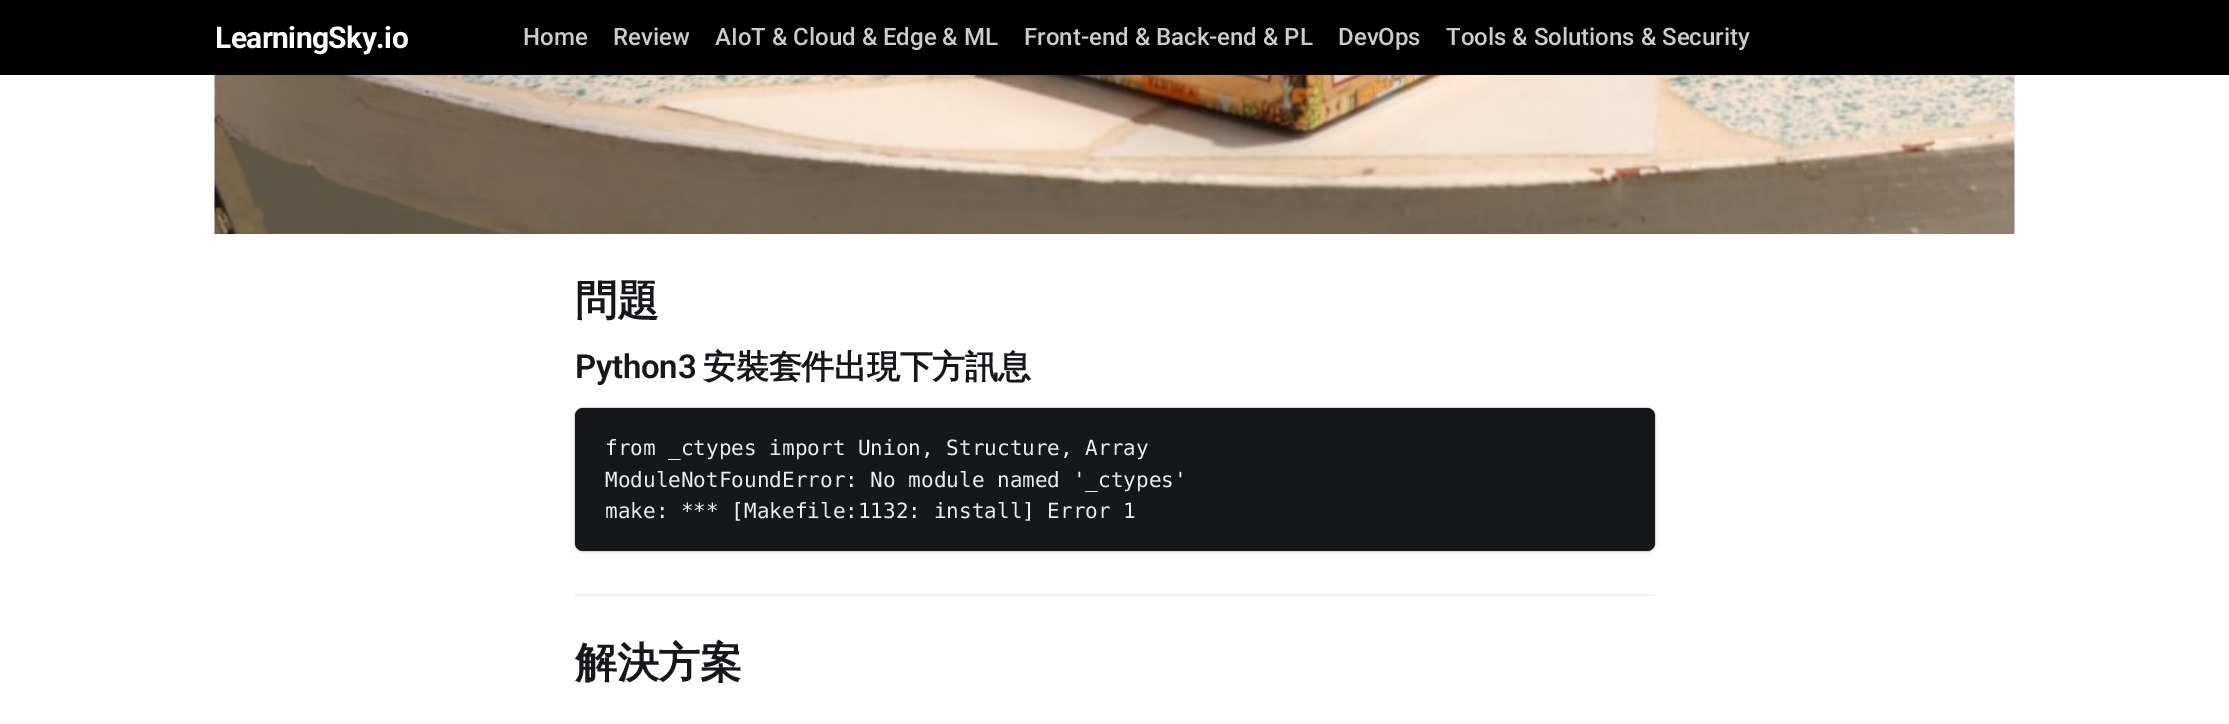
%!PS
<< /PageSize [2229 724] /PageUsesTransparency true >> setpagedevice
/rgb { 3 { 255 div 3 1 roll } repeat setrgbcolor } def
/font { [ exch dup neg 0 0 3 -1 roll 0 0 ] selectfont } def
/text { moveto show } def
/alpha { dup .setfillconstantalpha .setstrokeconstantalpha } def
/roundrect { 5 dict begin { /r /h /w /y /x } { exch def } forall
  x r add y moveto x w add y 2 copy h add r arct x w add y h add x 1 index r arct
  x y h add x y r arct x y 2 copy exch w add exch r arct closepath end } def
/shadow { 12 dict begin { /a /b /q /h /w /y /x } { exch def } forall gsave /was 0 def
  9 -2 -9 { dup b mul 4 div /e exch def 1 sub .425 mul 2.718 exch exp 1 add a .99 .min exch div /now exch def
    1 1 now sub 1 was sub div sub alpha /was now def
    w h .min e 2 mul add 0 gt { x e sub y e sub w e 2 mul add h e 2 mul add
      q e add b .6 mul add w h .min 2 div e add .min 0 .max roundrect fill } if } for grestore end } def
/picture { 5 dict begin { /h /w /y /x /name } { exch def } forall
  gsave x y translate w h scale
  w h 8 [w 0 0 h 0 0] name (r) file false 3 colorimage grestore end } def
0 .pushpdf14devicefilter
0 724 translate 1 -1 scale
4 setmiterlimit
255 255 255 rgb
0 0 2229 724 rectfill
0 0 0 rgb
0 0 2229 75 rectfill
(img_01.rgb) 214 75 1801 159 picture
575 408 1080 143 8 1 0.4 shadow
578 414 1074 137 5 4.5 0.1 shadow
21 23 26 rgb
575 408 1080 143 8 roundrect fill
240 240 240 rgb
575 594 1080 2 rectfill
/Roboto-Bold 30 font
255 255 255 rgb
215 48 moveto -0.6 0 (LearningSky.io) ashow
/Roboto-Medium 24 font
204 204 204 rgb
(Home) 523 45 text
(Review) 613 45 text
(AIoT & Cloud & Edge & ML) 715 45 text
(Front-end & Back-end & PL) 1024 45 text
(DevOps) 1338 45 text
(Tools & Solutions & Security) 1446 45 text
/WenQuanYiZenHei-Bold 42 font
21 23 26 rgb
575 315 moveto -0.5 0 (問題) ashow
/Roboto-SemiBold 33 font
575 378 moveto -0.25 0 (Python3) ashow
/WenQuanYiZenHei-Bold 33 font
703 378 moveto -0.25 0 (安裝套件出現下方訊息) ashow
/DejaVuSansMono-Regular 21 font
229 239 245 rgb
(from _ctypes import Union, Structure, Array) 605 455 text
(ModuleNotFoundError: No module named '_ctypes') 605 487 text
(make: *** [Makefile:1132: install] Error 1) 605 518 text
/WenQuanYiZenHei-Bold 42 font
21 23 26 rgb
575 677 moveto -0.5 0 (解決方案) ashow
.poppdf14devicefilter showpage
